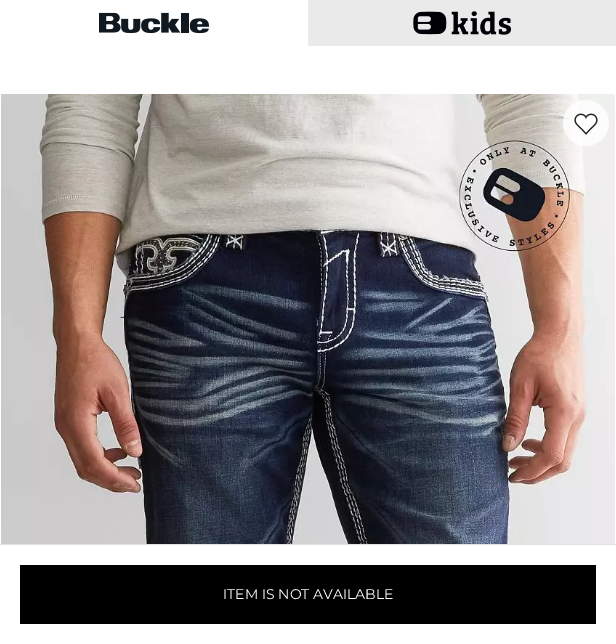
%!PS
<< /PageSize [616 644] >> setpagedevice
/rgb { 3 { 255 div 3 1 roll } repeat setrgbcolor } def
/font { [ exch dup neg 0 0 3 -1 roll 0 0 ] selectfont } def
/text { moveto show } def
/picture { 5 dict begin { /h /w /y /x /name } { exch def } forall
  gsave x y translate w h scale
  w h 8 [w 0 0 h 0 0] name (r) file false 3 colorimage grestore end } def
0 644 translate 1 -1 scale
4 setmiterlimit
255 255 255 rgb
0 0 616 644 rectfill
(img_01.rgb) 99 12 110 22 picture
234 234 234 rgb
308 0 308 46 rectfill
(img_02.rgb) 413 11 98 24 picture
(img_03.rgb) 1 94 614 450 picture
(img_04.rgb) 563 100 46 46 picture
225 225 225 rgb
0 544 616 1 rectfill
0 0 0 rgb
20 565 576 59 rectfill
/Montserrat-Thin 14 font
255 255 255 rgb
(ITEM IS NOT AVAILABLE) 223 599 text
showpage
